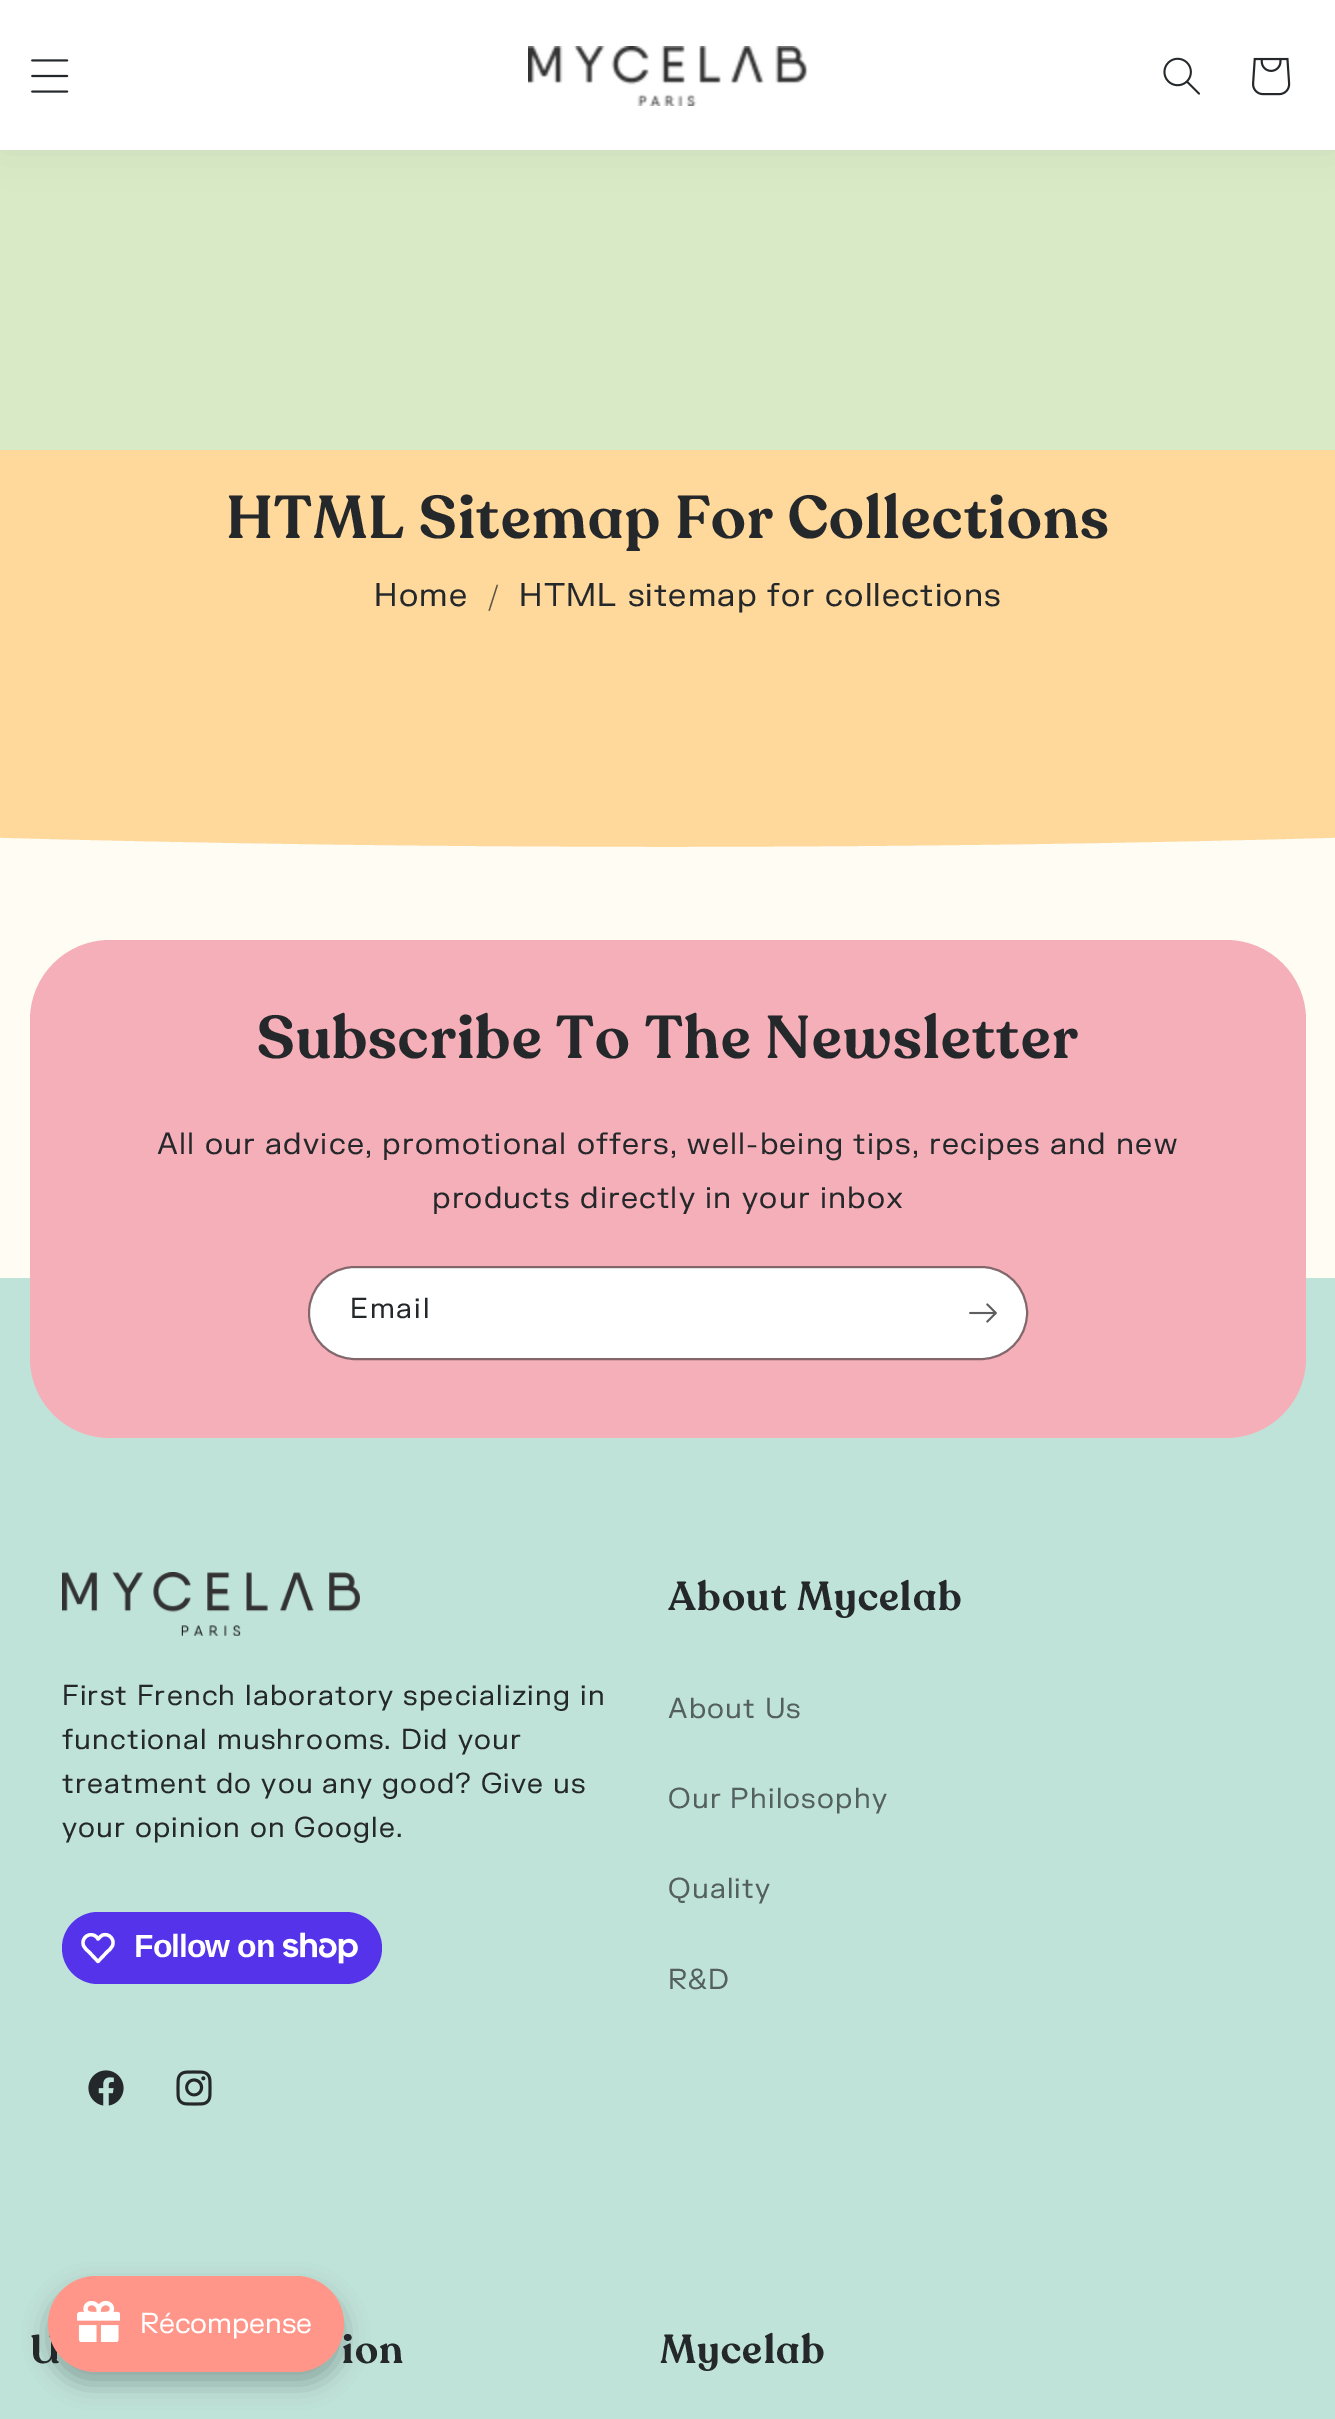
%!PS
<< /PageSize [1335 2419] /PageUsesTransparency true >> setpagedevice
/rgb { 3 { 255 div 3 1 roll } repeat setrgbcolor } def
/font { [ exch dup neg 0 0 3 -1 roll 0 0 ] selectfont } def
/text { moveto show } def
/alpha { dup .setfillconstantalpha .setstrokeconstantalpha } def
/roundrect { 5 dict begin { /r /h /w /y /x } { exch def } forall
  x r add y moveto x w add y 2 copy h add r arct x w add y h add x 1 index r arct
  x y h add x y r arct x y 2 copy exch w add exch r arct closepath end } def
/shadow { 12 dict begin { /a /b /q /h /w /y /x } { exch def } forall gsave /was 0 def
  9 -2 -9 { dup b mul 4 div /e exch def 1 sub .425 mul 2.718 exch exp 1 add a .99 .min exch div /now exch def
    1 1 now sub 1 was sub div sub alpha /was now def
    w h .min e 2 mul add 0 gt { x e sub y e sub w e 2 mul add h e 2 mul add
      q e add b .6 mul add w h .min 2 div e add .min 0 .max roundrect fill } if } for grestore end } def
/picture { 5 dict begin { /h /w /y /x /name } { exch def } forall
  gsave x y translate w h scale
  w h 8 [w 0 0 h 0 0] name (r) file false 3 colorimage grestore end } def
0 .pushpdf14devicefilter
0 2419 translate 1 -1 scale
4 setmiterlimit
255 252 244 rgb
0 0 1335 2419 rectfill
217 234 199 rgb
0 150 1335 300 rectfill
0 0 0 rgb
0 0 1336 150 0 23.5 0.05 shadow
255 255 255 rgb
0 0 1335 150 rectfill
(img_01.rgb) 31 59 38 34 picture
(img_02.rgb) 528 46 280 60 picture
(img_03.rgb) 1163 57 37 38 picture
(img_04.rgb) 1252 57 39 39 picture
255 216 155 rgb
0 450 1335 397 rectfill
gsave
0 712 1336 188 rectclip
255 252 244 rgb
-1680 712 moveto 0 218 rlineto 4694 0 rlineto 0 -218 rlineto -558 82 -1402 135 -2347 135 rcurveto -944 0 -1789 -53 -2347 -135 rcurveto closepath eofill
grestore
192 227 217 rgb
0 1278 1335 1141 rectfill
245 175 185 rgb
30 940 1276 498 80 roundrect fill
255 255 255 rgb
310 1268 716 90 45 roundrect fill
0.55 alpha
37 40 42 rgb
2 setlinewidth
309 1267 718 92 46 roundrect stroke
1 alpha
(img_05.rgb) 969 1303 28 20 picture
(img_06.rgb) 62 1572 298 64 picture
84 51 235 rgb
62 1912 320 72 36 roundrect fill
255 255 255 rgb
3.3 setlinewidth
1 setlinejoin
96.5 1937 moveto 1.5 2 rlineto 1.5 -1.5 3 -3.5 5 -4 rcurveto 6 -2 12 4.5 9.5 10.5 rcurveto -1 3 -4 5 -6 7 rcurveto -8.5 9 rlineto -8.5 -9 rlineto -2 -2 -5 -4 -6 -7 rcurveto -3 -8 7 -14.5 13 -8.5 rcurveto closepath stroke
(img_07.rgb) 283 1932 75 32 picture
(img_08.rgb) 88 2070 36 36 picture
(img_09.rgb) 176 2070 36 36 picture
0 0 0 rgb
48 2288 296 96 48 12 0.25 shadow
/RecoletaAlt-SemiBold 60 font
37 40 42 rgb
226 538 moveto 1.2 0 (HTML Sitemap For Collections) ashow
/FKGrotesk-Regular 32 font
374 606 moveto 1.2 0 (Home) ashow
/Assistant-Regular 30 font
92 84 70 rgb
488 606 moveto 1.2 0 (/) ashow
/FKGrotesk-Regular 32 font
37 40 42 rgb
519 606 moveto 1.2 0 (HTML sitemap for collections) ashow
/RecoletaAlt-SemiBold 60 font
257 1058 moveto 1.2 0 (Subscribe To The Newsletter) ashow
/FKGrotesk-Regular 30 font
157 1154 moveto 1.2 0 (All our advice, promotional offers, well-being tips, recipes and new) ashow
432 1208 moveto 1.2 0 (products directly in your inbox) ashow
/FKGrotesk-Regular 28 font
350 1318 moveto 2 0 (Email) ashow
62 1705 moveto 1.2 0 (First French laboratory specializing in) ashow
62 1749 moveto 1.2 0 (functional mushrooms. Did your) ashow
62 1793 moveto 1.2 0 (treatment do you any good? Give us) ashow
62 1837 moveto 1.2 0 (your opinion on Google.) ashow
/LiberationSans-Bold 32 font
255 255 255 rgb
134 1957 moveto -1 0 (Follow on) ashow
/RecoletaAlt-SemiBold 40 font
37 40 42 rgb
668 1610 moveto 1.2 0 (About Mycelab) ashow
/FKGrotesk-Regular 28 font
84 96 95 rgb
668 1718 moveto 1.2 0 (About Us) ashow
668 1808 moveto 1.2 0 (Our Philosophy) ashow
668 1898 moveto 1.2 0 (Quality) ashow
668 1989 moveto 1.2 0 (R&D) ashow
/RecoletaAlt-SemiBold 40 font
37 40 42 rgb
30 2363 moveto 1.2 0 (U) ashow
342 2363 moveto 1.2 0 (ion) ashow
660 2363 moveto 1.2 0 (Mycelab) ashow
255 150 137 rgb
48 2276 296 96 48 roundrect fill
(img_10.rgb) 77 2300 43 42 picture
/FKGrotesk-Regular 28 font
255 255 255 rgb
(Récompense) 140 2333 text
.poppdf14devicefilter showpage
